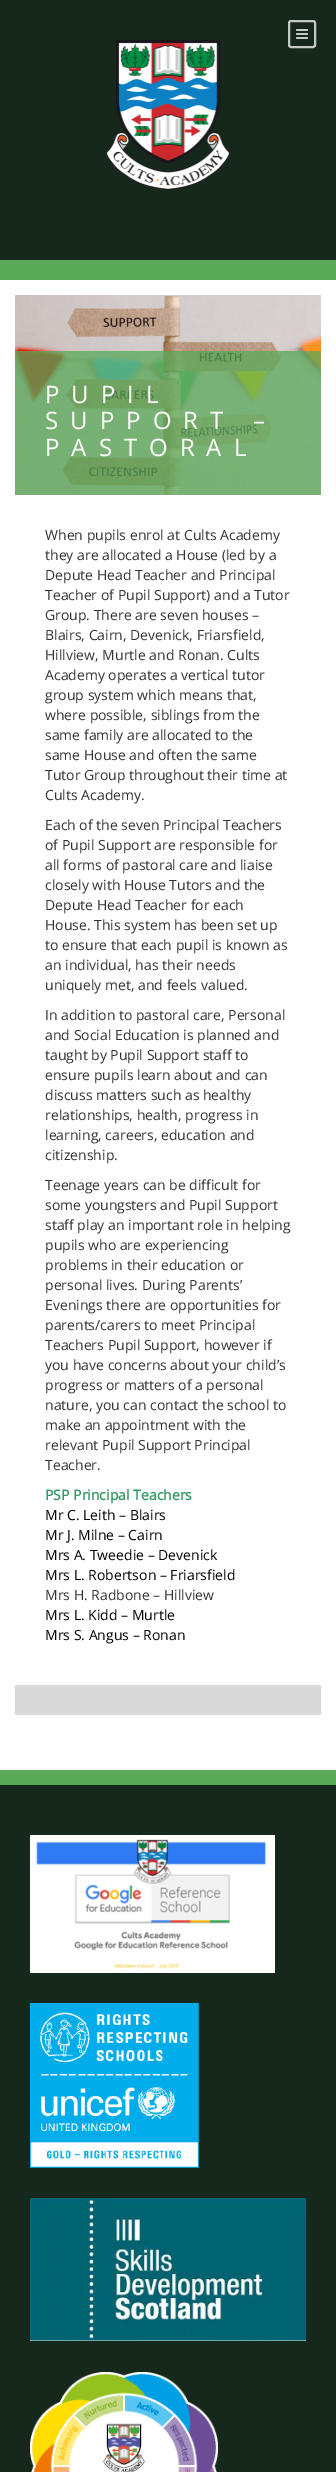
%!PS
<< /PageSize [336 2472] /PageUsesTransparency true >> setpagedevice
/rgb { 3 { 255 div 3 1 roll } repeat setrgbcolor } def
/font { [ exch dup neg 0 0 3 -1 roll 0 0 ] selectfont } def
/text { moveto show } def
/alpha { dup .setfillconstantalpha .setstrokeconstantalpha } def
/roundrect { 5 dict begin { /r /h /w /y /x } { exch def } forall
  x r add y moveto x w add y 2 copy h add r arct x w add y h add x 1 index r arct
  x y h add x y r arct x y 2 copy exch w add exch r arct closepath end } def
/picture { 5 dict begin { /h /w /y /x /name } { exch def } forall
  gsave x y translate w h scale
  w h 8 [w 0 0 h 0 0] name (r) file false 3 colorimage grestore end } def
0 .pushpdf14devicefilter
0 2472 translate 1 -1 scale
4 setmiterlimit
255 255 255 rgb
0 0 336 2472 rectfill
22 40 28 rgb
0 0 336 260 rectfill
197 201 198 rgb
2 setlinewidth
289 21 26 26 2 roundrect stroke
(img_01.rgb) 296 29 12 10 picture
(img_02.rgb) 106 40 124 150 picture
90 169 89 rgb
0 260 336 20 rectfill
(img_03.rgb) 15 295 306 200 picture
0.75 alpha
15 351 306 144 rectfill
1 alpha
217 217 217 rgb
15 1685 306 30 rectfill
22 40 28 rgb
0 1785 336 687 rectfill
90 169 89 rgb
0 1770 336 15 rectfill
(img_04.rgb) 30 1835 245 138 picture
(img_05.rgb) 30 2003 169 165 picture
(img_06.rgb) 30 2198 276 143 picture
(img_07.rgb) 30 2372 188 100 picture
/OpenSans-Regular 24 font
255 255 255 rgb
45 403 moveto 12 0 (PUPIL) ashow
45 429 moveto 12 0 (SUPPORT –) ashow
45 456 moveto 12 0 (PASTORAL) ashow
/OpenSans-Regular 14 font
51 51 51 rgb
(When pupils enrol at Cults Academy) 45 540 text
(they are allocated a House \(led by a) 45 560 text
(Depute Head Teacher and Principal) 45 580 text
(Teacher of Pupil Support\) and a Tutor) 45 600 text
(Group. There are seven houses –) 45 620 text
(Blairs, Cairn, Devenick, Friarsfield,) 45 640 text
(Hillview, Murtle and Ronan. Cults) 45 660 text
(Academy operates a vertical tutor) 45 680 text
(group system which means that,) 45 700 text
(where possible, siblings from the) 45 720 text
(same family are allocated to the) 45 740 text
(same House and often the same) 45 760 text
(Tutor Group throughout their time at) 45 780 text
(Cults Academy.) 45 800 text
(Each of the seven Principal Teachers) 45 830 text
(of Pupil Support are responsible for) 45 850 text
(all forms of pastoral care and liaise) 45 870 text
(closely with House Tutors and the) 45 890 text
(Depute Head Teacher for each) 45 910 text
(House. This system has been set up) 45 930 text
(to ensure that each pupil is known as) 45 950 text
(an individual, has their needs) 45 970 text
(uniquely met, and feels valued.) 45 990 text
(In addition to pastoral care, Personal) 45 1020 text
(and Social Education is planned and) 45 1040 text
(taught by Pupil Support staff to) 45 1060 text
(ensure pupils learn about and can) 45 1080 text
(discuss matters such as healthy) 45 1100 text
(relationships, health, progress in) 45 1120 text
(learning, careers, education and) 45 1140 text
(citizenship.) 45 1160 text
(Teenage years can be difficult for) 45 1190 text
(some youngsters and Pupil Support) 45 1210 text
(staff play an important role in helping) 45 1230 text
(pupils who are experiencing) 45 1250 text
(problems in their education or) 45 1270 text
(personal lives. During Parents’) 45 1290 text
(Evenings there are opportunities for) 45 1310 text
(parents/carers to meet Principal) 45 1330 text
(Teachers Pupil Support, however if) 45 1350 text
(you have concerns about your child’s) 45 1370 text
(progress or matters of a personal) 45 1390 text
(nature, you can contact the school to) 45 1410 text
(make an appointment with the) 45 1430 text
(relevant Pupil Support Principal) 45 1450 text
(Teacher.) 45 1470 text
/OpenSans-Bold 14 font
51 153 102 rgb
(PSP Principal Teachers) 45 1500 text
/OpenSans-Regular 14 font
0 0 0 rgb
(Mr C. Leith – Blairs) 45 1520 text
(Mr J. Milne – Cairn) 45 1540 text
(Mrs A. Tweedie – Devenick) 45 1560 text
(Mrs L. Robertson – Friarsfield) 45 1580 text
51 51 51 rgb
(Mrs H. Radbone – Hillview) 45 1600 text
0 0 0 rgb
(Mrs L. Kidd – Murtle) 45 1620 text
(Mrs S. Angus – Ronan) 45 1640 text
.poppdf14devicefilter showpage
